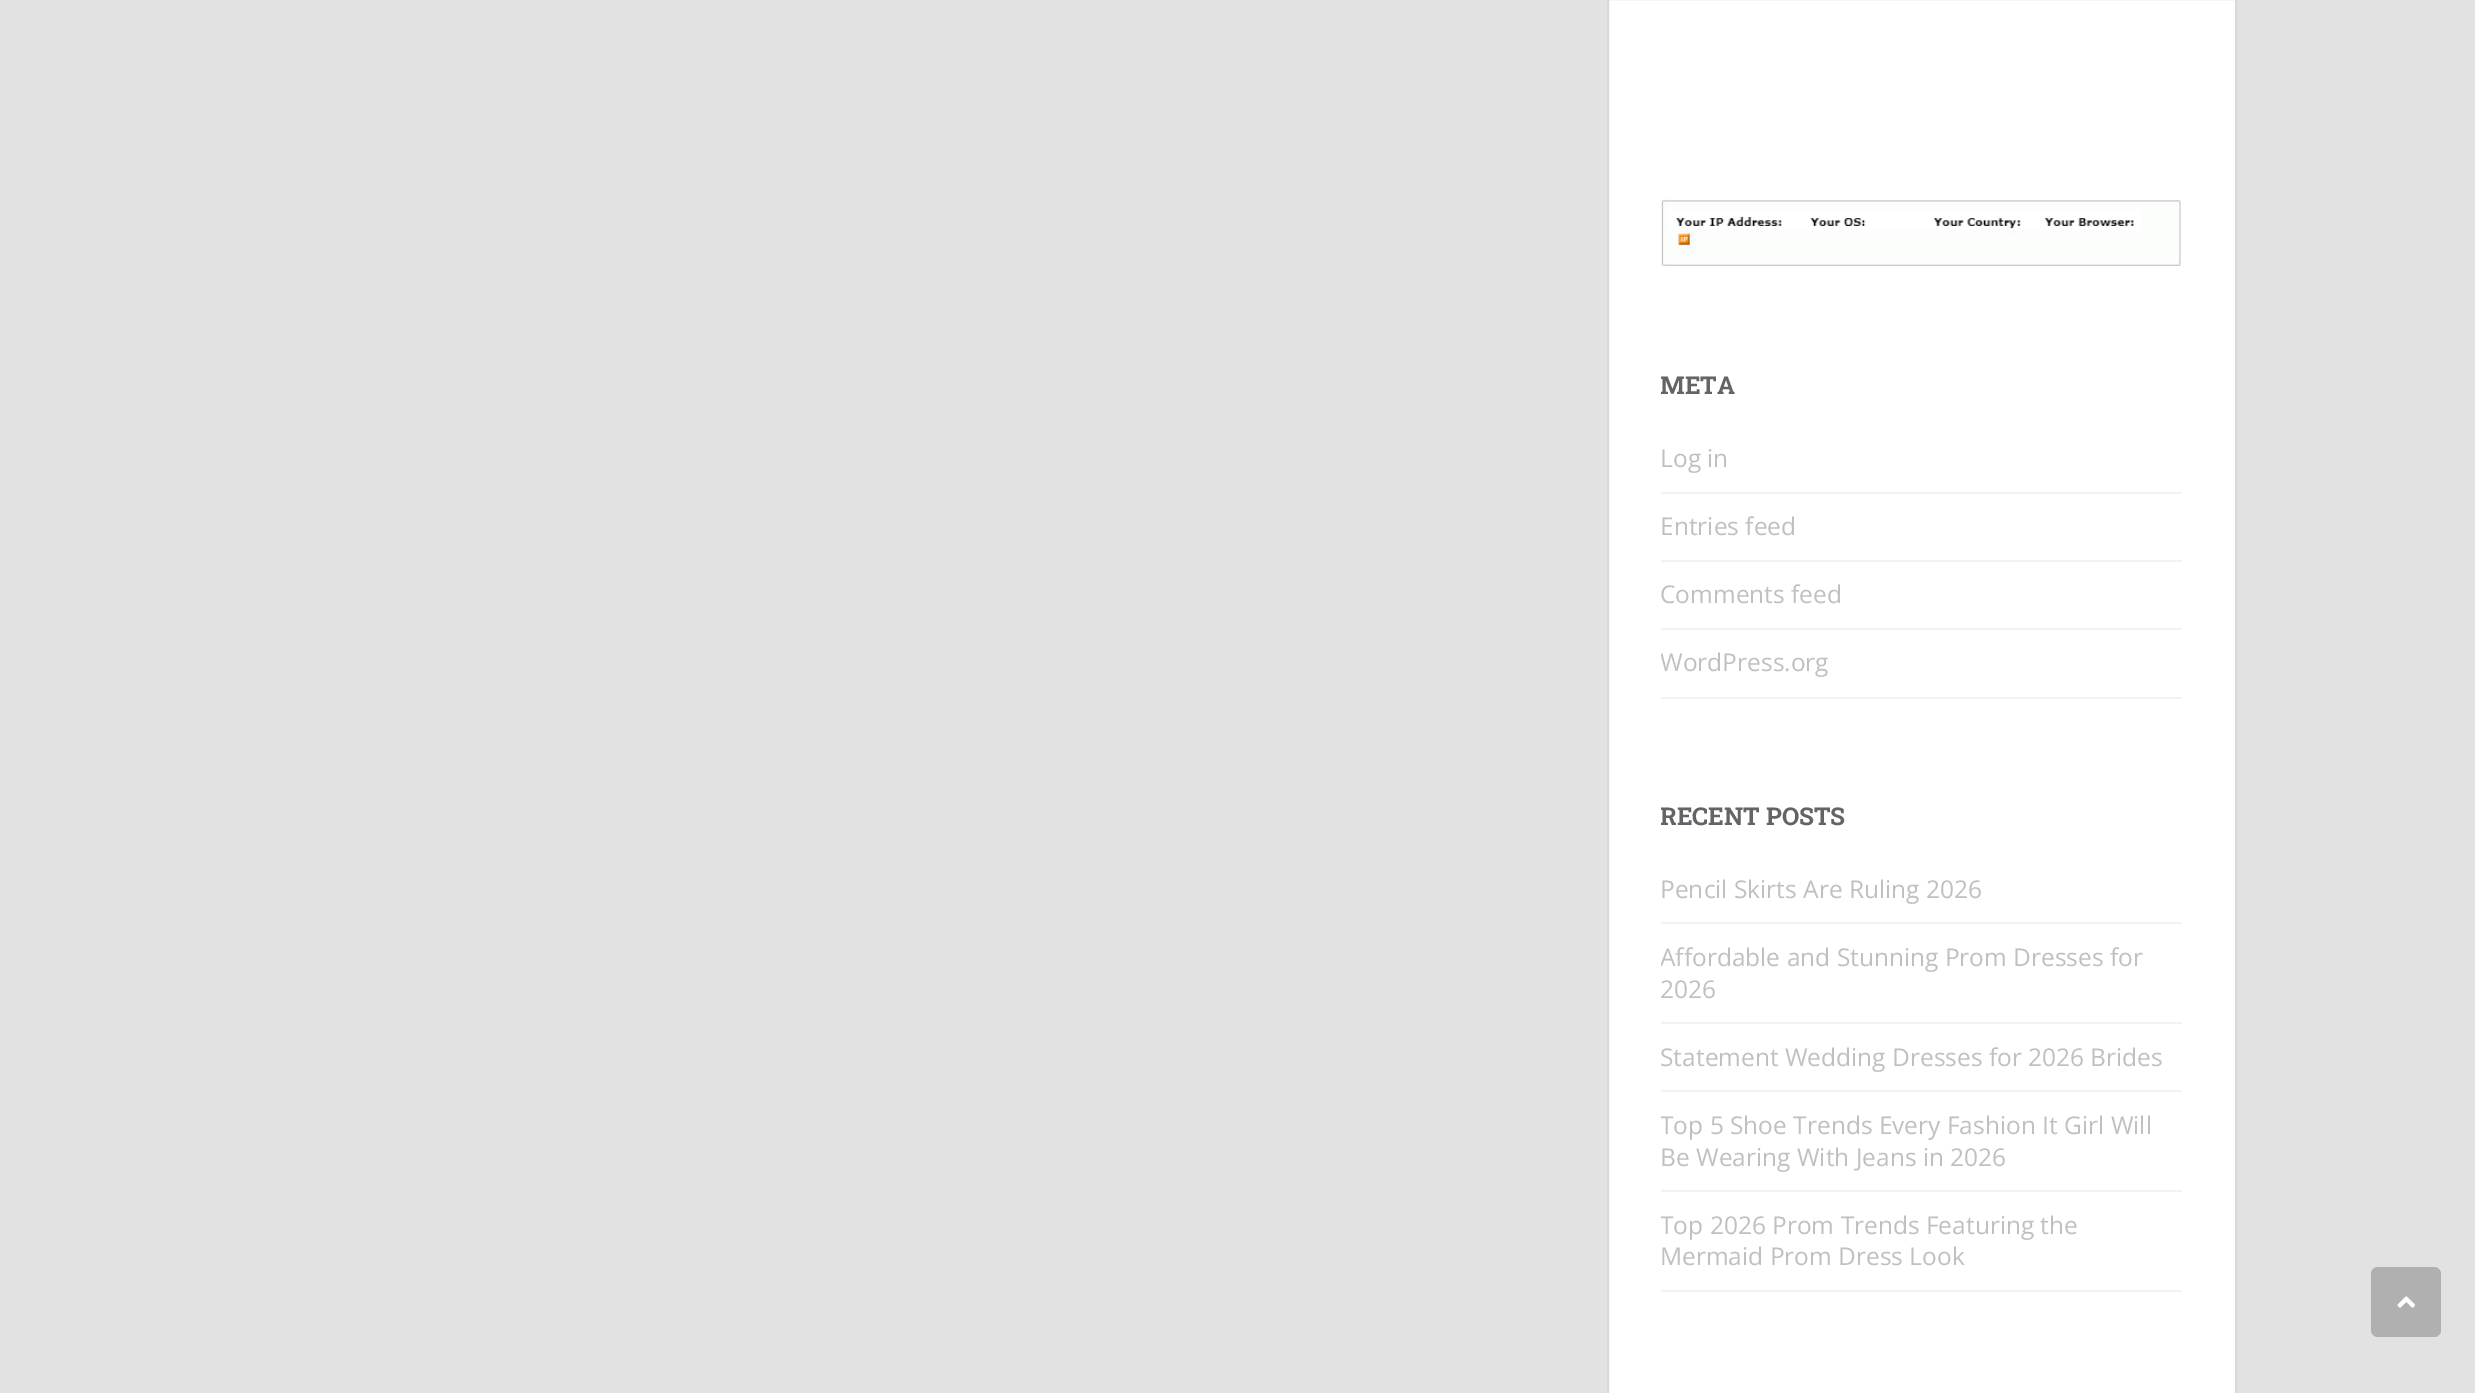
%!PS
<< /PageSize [2475 1393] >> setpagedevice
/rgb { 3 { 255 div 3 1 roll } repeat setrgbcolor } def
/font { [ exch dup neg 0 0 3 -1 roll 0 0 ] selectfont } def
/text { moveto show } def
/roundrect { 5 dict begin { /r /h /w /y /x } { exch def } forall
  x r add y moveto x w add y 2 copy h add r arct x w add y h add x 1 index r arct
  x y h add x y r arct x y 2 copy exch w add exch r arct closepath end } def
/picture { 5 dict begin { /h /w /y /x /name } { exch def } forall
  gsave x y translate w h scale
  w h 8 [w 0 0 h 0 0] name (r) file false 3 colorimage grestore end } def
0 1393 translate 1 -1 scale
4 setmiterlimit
226 226 226 rgb
0 0 2475 1393 rectfill
255 255 255 rgb
1608 -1 moveto 628 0 rlineto 0 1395 rlineto -628 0 rlineto closepath gsave fill grestore
218 218 218 rgb
2 setlinewidth
stroke
(img_01.rgb) 1661 199 520 67 picture
242 242 242 rgb
1661 492 521 2 rectfill
1661 560 521 2 rectfill
1661 628 521 2 rectfill
1661 697 521 2 rectfill
1661 922 521 2 rectfill
1661 1022 521 2 rectfill
1661 1090 521 2 rectfill
1661 1190 521 2 rectfill
1661 1290 521 2 rectfill
176 176 176 rgb
2371 1267 70 70 7 roundrect fill
(img_02.rgb) 2397 1296 18 12 picture
gsave
1661 371 521 345 rectclip
/RobotoSlab-Bold 24.5 font
99 100 103 rgb
(META) 1660 394 text
grestore
/OpenSans-Regular 24.5 font
193 192 192 rgb
(Log in) 1660 467 text
(Entries feed) 1660 535 text
(Comments feed) 1660 603 text
gsave
1661 371 521 345 rectclip
(WordPress.org) 1660 671 text
grestore
gsave
1661 803 521 506 rectclip
/RobotoSlab-Bold 24.5 font
99 100 103 rgb
(RECENT POSTS) 1660 825 text
grestore
(Pencil Skirts Are Ruling 2026) 1660 898 text
gsave
1661 803 521 506 rectclip
(Affordable and Stunning Prom Dresses for) 1660 966 text
grestore
(2026) 1660 998 text
(Statement Wedding Dresses for 2026 Brides) 1660 1066 text
gsave
1661 803 521 506 rectclip
(Top 5 Shoe Trends Every Fashion It Girl Will) 1660 1134 text
grestore
(Be Wearing With Jeans in 2026) 1660 1166 text
gsave
1661 803 521 506 rectclip
(Top 2026 Prom Trends Featuring the) 1660 1234 text
grestore
(Mermaid Prom Dress Look) 1660 1265 text
showpage
